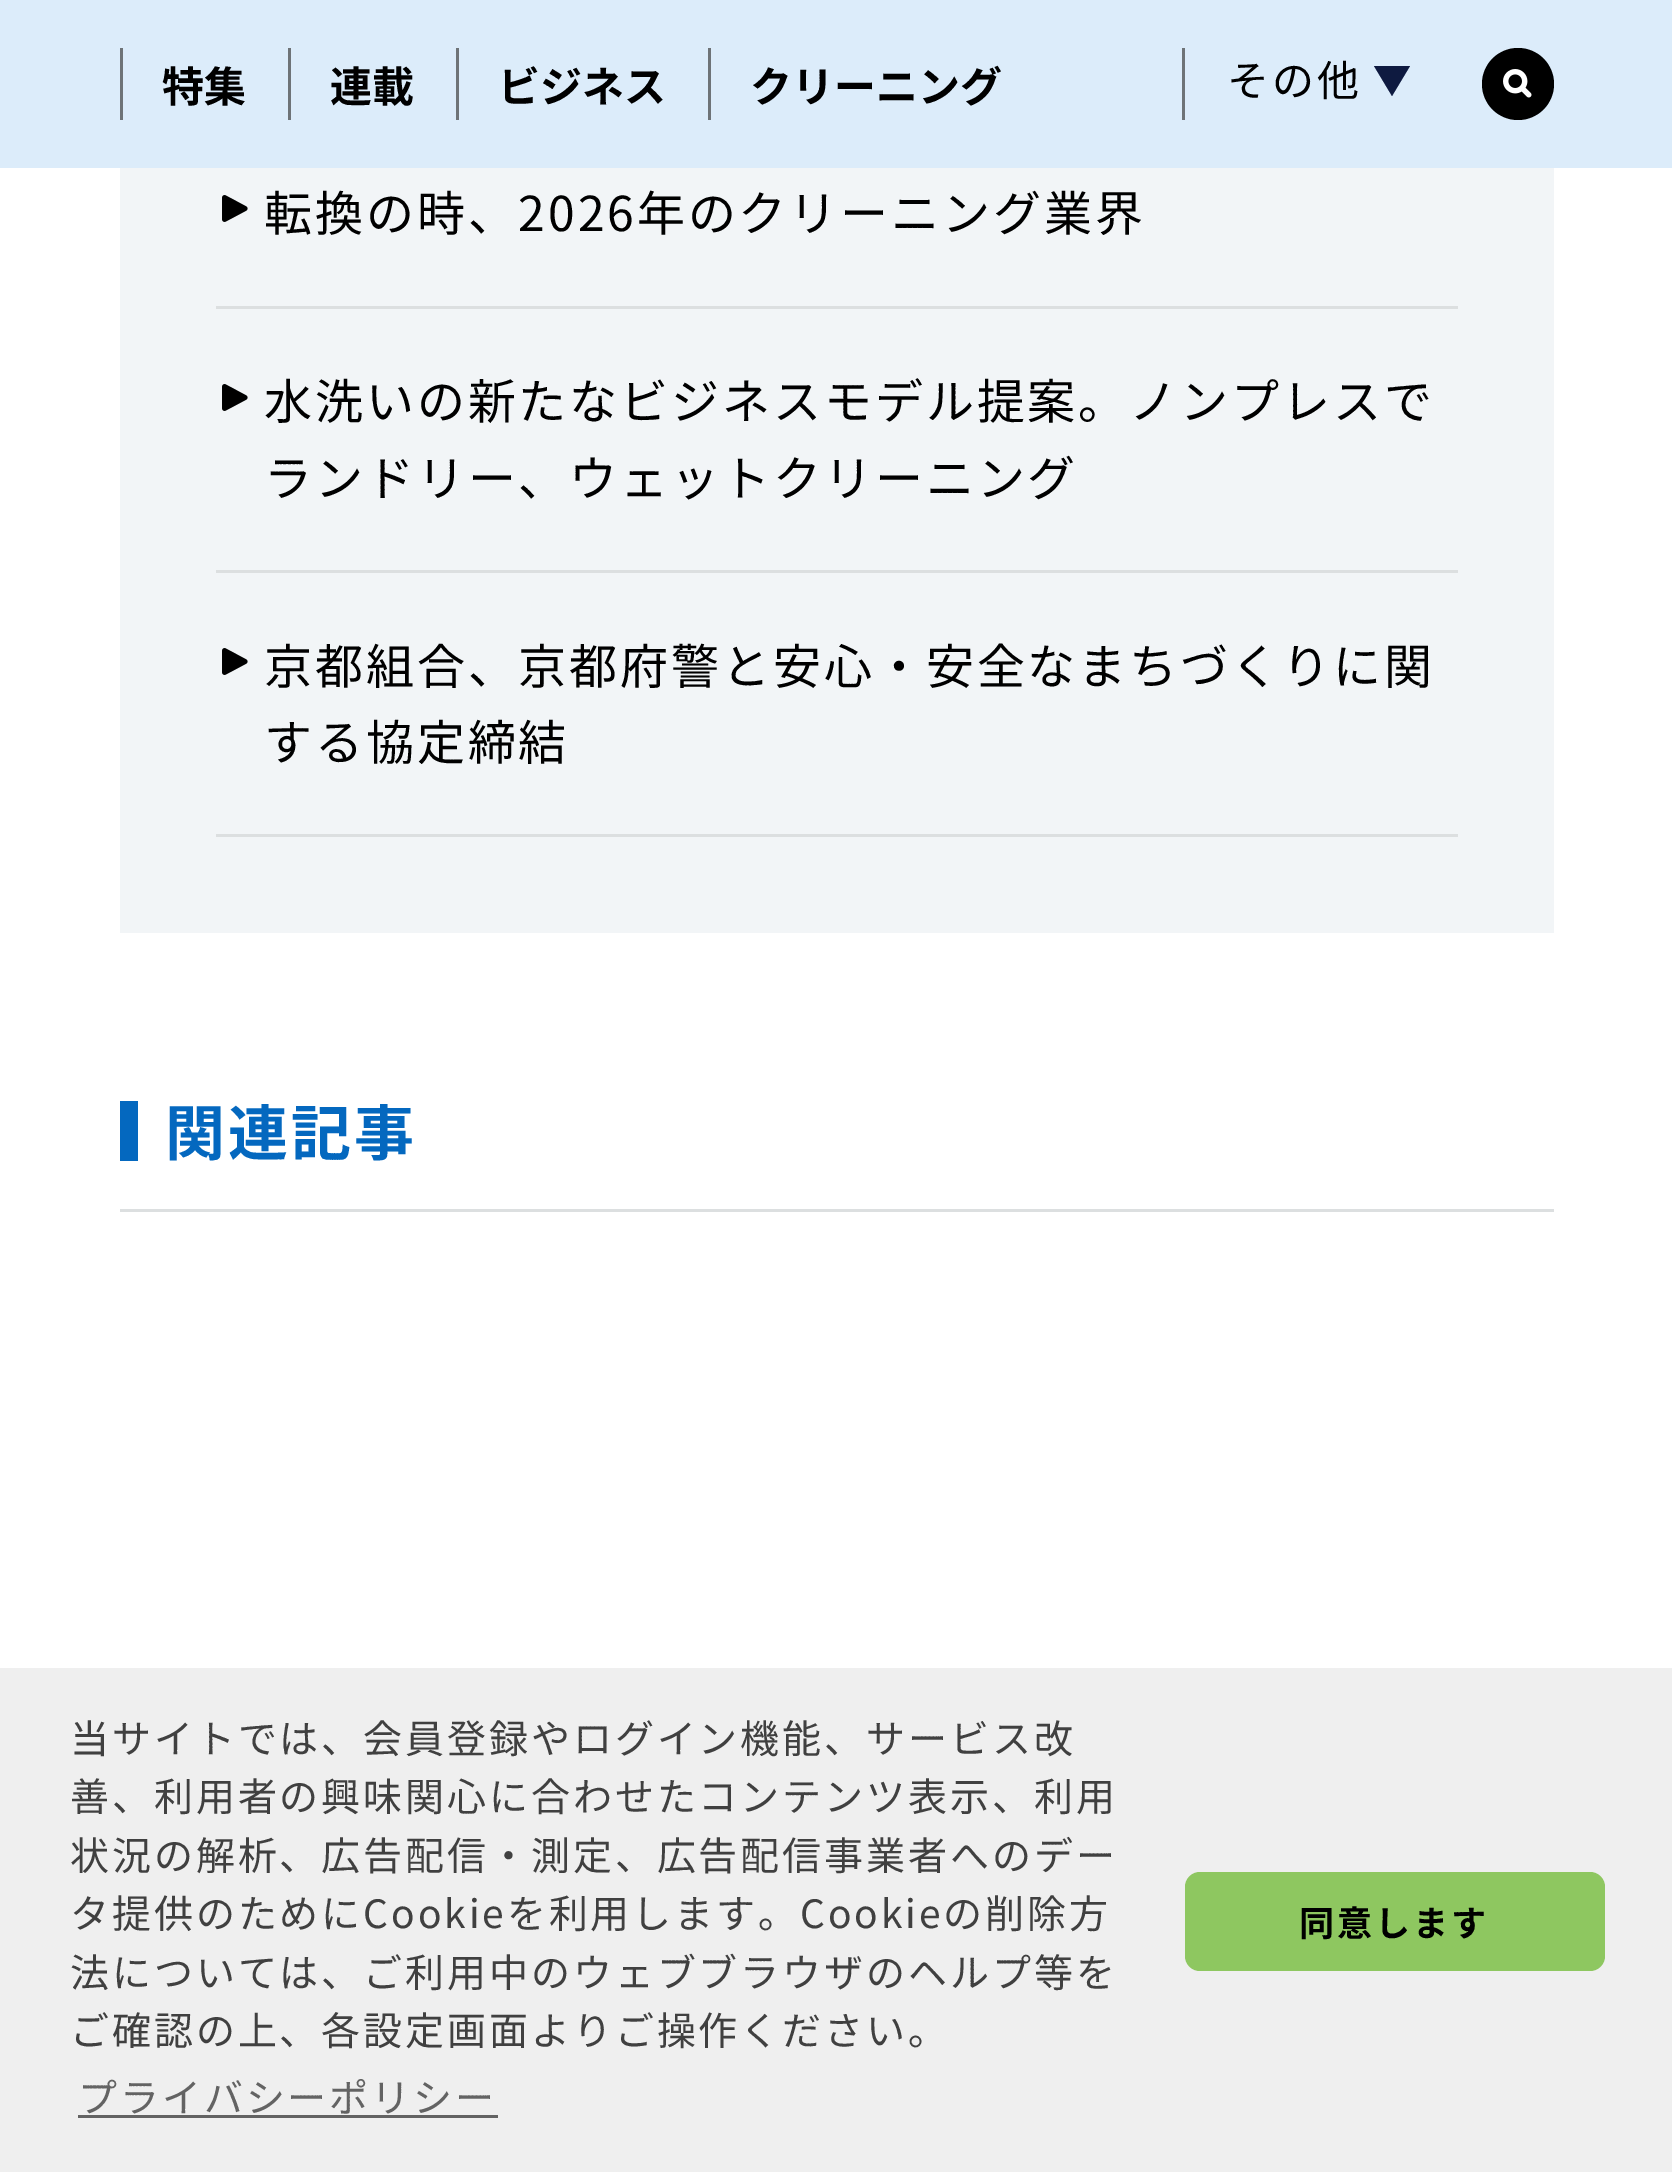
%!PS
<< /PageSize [1672 2172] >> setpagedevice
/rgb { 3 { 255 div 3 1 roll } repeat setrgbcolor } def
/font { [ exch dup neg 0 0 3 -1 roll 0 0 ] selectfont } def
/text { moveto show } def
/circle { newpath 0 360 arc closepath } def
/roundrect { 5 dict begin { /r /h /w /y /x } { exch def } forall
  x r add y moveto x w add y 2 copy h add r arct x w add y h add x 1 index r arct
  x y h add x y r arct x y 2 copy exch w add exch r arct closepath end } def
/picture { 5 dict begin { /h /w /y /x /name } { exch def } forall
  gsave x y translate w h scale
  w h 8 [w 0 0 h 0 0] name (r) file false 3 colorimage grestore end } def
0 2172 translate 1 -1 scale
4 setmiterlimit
255 255 255 rgb
0 0 1672 2172 rectfill
220 236 250 rgb
0 0 1672 168 rectfill
110 115 119 rgb
120 48 3 72 rectfill
288 48 3 72 rectfill
456 48 3 72 rectfill
708 48 3 72 rectfill
1182 48 3 72 rectfill
14 26 64 rgb
1374 66 moveto 36 0 rlineto -18 30 rlineto closepath fill
0 0 0 rgb
1518 84 36 circle fill
(img_01.rgb) 1503 69 29 29 picture
242 245 247 rgb
120 168 1434 765 rectfill
220 223 224 rgb
216 306 1242 3 rectfill
(img_02.rgb) 222 195 26 27 picture
216 570 1242 3 rectfill
(img_02.rgb) 222 384 26 27 picture
216 834 1242 3 rectfill
(img_02.rgb) 222 648 26 27 picture
120 1209 1434 3 rectfill
4 104 191 rgb
120 1101 18 60 rectfill
239 239 239 rgb
0 1668 1672 504 rectfill
99 99 99 rgb
78 2115 420 3 rectfill
142 199 96 rgb
1185 1872 420 99 15 roundrect fill
/NotoSansJP-Bold 42 font
0 0 0 rgb
(特集) 162 102 text
(連載) 330 102 text
(ビジネス) 498 102 text
(クリーニング) 750 102 text
/NotoSansJP-Regular 42 font
1227 96 moveto 2.9 0 (その他) ashow
/NotoSansJP-Regular 48 font
264 231 moveto 2.9 0 (転換の時、2026年のクリーニング業界) ashow
264 419 moveto 2.9 0 (水洗いの新たなビジネスモデル提案。ノンプレスで) ashow
264 496 moveto 2.9 0 (ランドリー、ウェットクリーニング) ashow
264 684 moveto 2.9 0 (京都組合、京都府警と安心・安全なまちづくりに関) ashow
264 760 moveto 2.9 0 (する協定締結) ashow
/NotoSansJP-Bold 60 font
4 104 191 rgb
165 1155 moveto 2.9 0 (関連記事) ashow
/NotoSansJP-Regular 39 font
64 64 64 rgb
70 1753 moveto 2.9 0 (当サイトでは、会員登録やログイン機能、サービス改) ashow
70 1811 moveto 2.9 0 (善、利用者の興味関心に合わせたコンテンツ表示、利用) ashow
70 1870 moveto 2.9 0 (状況の解析、広告配信・測定、広告配信事業者へのデー) ashow
70 1928 moveto 2.9 0 (タ提供のためにCookieを利用します。Cookieの削除方) ashow
70 1987 moveto 2.9 0 (法については、ご利用中のウェブブラウザのヘルプ等を) ashow
70 2045 moveto 2.9 0 (ご確認の上、各設定画面よりご操作ください。) ashow
99 99 99 rgb
78 2112 moveto 2.9 0 (プライバシーポリシー) ashow
/NotoSansJP-Bold 35 font
0 0 0 rgb
1299 1936 moveto 2.9 0 (同意します) ashow
showpage
